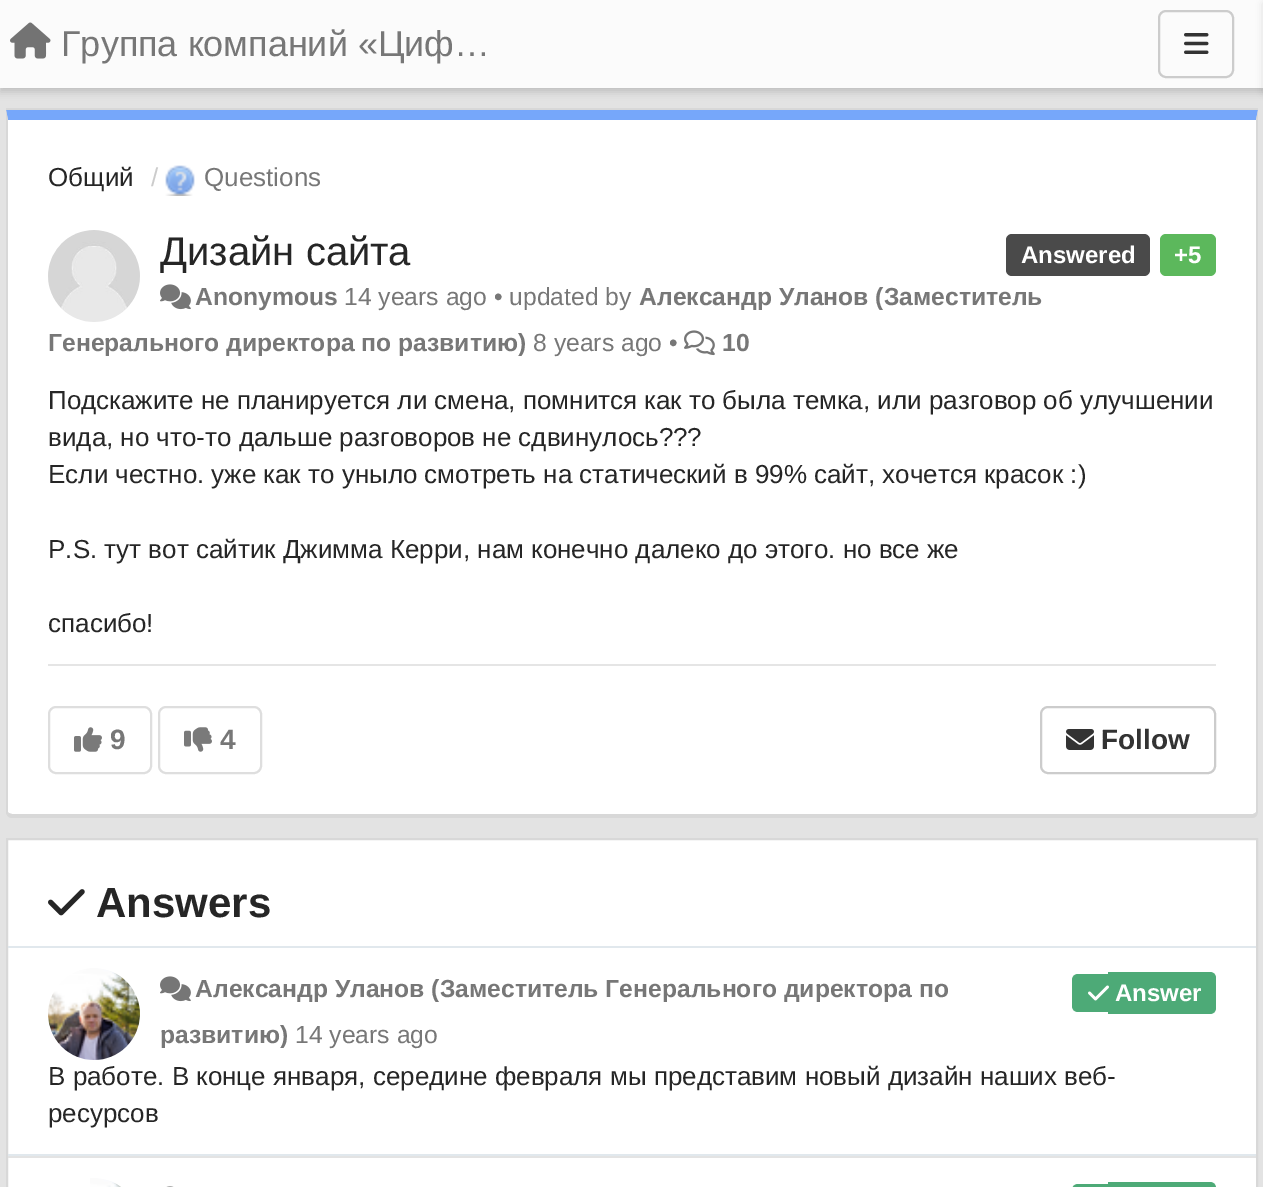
%!PS
<< /PageSize [1263 1187] /PageUsesTransparency true >> setpagedevice
/rgb { 3 { 255 div 3 1 roll } repeat setrgbcolor } def
/font { [ exch dup neg 0 0 3 -1 roll 0 0 ] selectfont } def
/text { moveto show } def
/alpha { dup .setfillconstantalpha .setstrokeconstantalpha } def
/roundrect { 5 dict begin { /r /h /w /y /x } { exch def } forall
  x r add y moveto x w add y 2 copy h add r arct x w add y h add x 1 index r arct
  x y h add x y r arct x y 2 copy exch w add exch r arct closepath end } def
/shadow { 12 dict begin { /a /b /q /h /w /y /x } { exch def } forall gsave /was 0 def
  9 -2 -9 { dup b mul 4 div /e exch def 1 sub .425 mul 2.718 exch exp 1 add a .99 .min exch div /now exch def
    1 1 now sub 1 was sub div sub alpha /was now def
    w h .min e 2 mul add 0 gt { x e sub y e sub w e 2 mul add h e 2 mul add
      q e add b .6 mul add w h .min 2 div e add .min 0 .max roundrect fill } if } for grestore end } def
/picture { 5 dict begin { /h /w /y /x /name } { exch def } forall
  gsave x y translate w h scale
  w h 8 [w 0 0 h 0 0] name (r) file false 3 colorimage grestore end } def
0 .pushpdf14devicefilter
0 1187 translate 1 -1 scale
4 setmiterlimit
227 227 227 rgb
0 0 1263 1187 rectfill
0 0 0 rgb
0 4 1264 88 0 4 0.15 shadow
251 251 251 rgb
0 0 1263 88 rectfill
(img_01.rgb) 10 22 41 37 picture
204 204 204 rgb
2 setlinewidth
1159 11 74 66 7 roundrect stroke
(img_02.rgb) 1184 33 25 21 picture
0 0 0 rgb
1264 4 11 88 0 4 0.15 shadow
216 216 216 rgb
6 108 1252 2 rectfill
255 255 255 rgb
8 120 moveto 1248 0 rlineto 0 692 rlineto 0 1 -2 2 -4 2 rcurveto -1240 0 rlineto -2 0 -4 -1 -4 -2 rcurveto closepath fill
118 167 250 rgb
6 110 moveto 2 10 rlineto 1248 0 rlineto 2 -10 rlineto closepath fill
216 216 216 rgb
1258 110 moveto -2 10 rlineto 0 692 rlineto -1 1 rlineto 2 2 rlineto 1 -3 rlineto closepath fill
12 818 moveto 1240 0 rlineto 2 0 4 -1 5 -3 rcurveto -2 -2 rlineto -2 1 rlineto -1034 0 rlineto -207 0 rlineto -3 -1 rlineto -2 2 rlineto 1 2 3 3 5 3 rcurveto closepath fill
8 120 moveto -2 -10 rlineto 0 702 rlineto 0 1 0 2 1 3 rcurveto 2 -2 rlineto -1 -1 rlineto closepath fill
(img_03.rgb) 165 165 30 31 picture
(img_04.rgb) 48 230 92 92 picture
74 74 74 rgb
1006 234 144 42 6 roundrect fill
92 184 92 rgb
1160 234 56 42 6 roundrect fill
(img_05.rgb) 160 284 31 26 picture
(img_06.rgb) 684 330 31 26 picture
229 229 229 rgb
48 664 1168 2 rectfill
222 222 222 rgb
49 707 102 66 7 roundrect stroke
(img_07.rgb) 74 727 28 25 picture
159 707 102 66 7 roundrect stroke
(img_08.rgb) 184 727 28 25 picture
204 204 204 rgb
1041 707 174 66 7 roundrect stroke
(img_09.rgb) 1066 729 28 21 picture
255 255 255 rgb
8 840 moveto 1248 0 rlineto 0 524 rlineto 0 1 -2 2 -4 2 rcurveto -1240 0 rlineto -2 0 -4 -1 -4 -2 rcurveto closepath fill
216 216 216 rgb
7 839 1250 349 rectstroke
(img_10.rgb) 48 889 37 27 picture
225 232 237 rgb
8 946 1248 2 rectfill
8 1154 1248 2 rectfill
(img_11.rgb) 48 968 92 92 picture
(img_05.rgb) 160 976 31 26 picture
77 170 119 rgb
1078 974 moveto 30 0 rlineto 0 38 rlineto -30 0 rlineto -3.5 0 -6 -2.5 -6 -6 rcurveto 0 -26 rlineto 0 -3.5 2.5 -6 6 -6 rcurveto closepath fill
1108 972 moveto 102 0 rlineto 3.5 0 6 2.5 6 6 rcurveto 0 30 rlineto 0 3.5 -2.5 6 -6 6 rcurveto -102 0 rlineto closepath fill
(img_12.rgb) 1088 985 21 16 picture
227 227 227 rgb
8 1156 1248 2 rectfill
(img_13.rgb) 90 1178 31 9 picture
(img_14.rgb) 166 1186 8 1 picture
77 170 119 rgb
1078 1184 moveto 30 0 rlineto 0 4 rlineto -36 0 rlineto 0 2 rlineto 0 -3.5 2.5 -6 6 -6 rcurveto closepath fill
1108 1182 moveto 102 0 rlineto 3.5 0 6 2.5 6 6 rcurveto -108 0 rlineto closepath fill
/LiberationSans-Regular 36 font
119 119 119 rgb
(Группа компаний «Циф…) 61 56 text
/LiberationSans-Regular 26 font
38 38 38 rgb
(Общий) 48 186 text
204 204 204 rgb
(/) 151 186 text
119 119 119 rgb
(Questions) 204 186 text
/LiberationSans-Regular 40 font
38 38 38 rgb
(Дизайн сайта) 160 265 text
/LiberationSans-Bold 24 font
255 255 255 rgb
(Answered) 1021 263 text
(+5) 1174 263 text
/LiberationSans-Bold 24.7 font
119 119 119 rgb
(Anonymous) 195 305 text
/LiberationSans-Regular 24.7 font
(14 years ago • updated by) 344 305 text
/LiberationSans-Bold 24.7 font
(Александр Уланов \(Заместитель) 639 305 text
(Генерального директора по развитию\)) 48 351 text
/LiberationSans-Regular 24.7 font
(8 years ago •) 533 351 text
/LiberationSans-Bold 24.7 font
(10) 722 351 text
/LiberationSans-Regular 26 font
38 38 38 rgb
(Подскажите не планируется ли смена, помнится как то была темка, или разговор об улучшении) 48 409 text
(вида, но что-то дальше разговоров не сдвинулось???) 48 446 text
(Если честно. уже как то уныло смотреть на статический в 99% сайт, хочется красок :\)) 48 483 text
(P.S. тут вот сайтик Джимма Керри, нам конечно далеко до этого. но все же) 48 558 text
(спасибо!) 48 632 text
/LiberationSans-Bold 28 font
119 119 119 rgb
(9) 110 749 text
(4) 220 749 text
51 51 51 rgb
(Follow) 1101 749 text
/LiberationSans-Bold 42 font
38 38 38 rgb
(Answers) 96 917 text
/LiberationSans-Bold 24.7 font
119 119 119 rgb
(Александр Уланов \(Заместитель Генерального директора по) 195 997 text
(развитию\)) 160 1043 text
/LiberationSans-Regular 24.7 font
(14 years ago) 295 1043 text
/LiberationSans-Bold 24 font
255 255 255 rgb
(Answer) 1115 1001 text
/LiberationSans-Regular 26 font
38 38 38 rgb
(В работе. В конце января, середине февраля мы представим новый дизайн наших веб-) 48 1085 text
(ресурсов) 48 1122 text
.poppdf14devicefilter showpage
